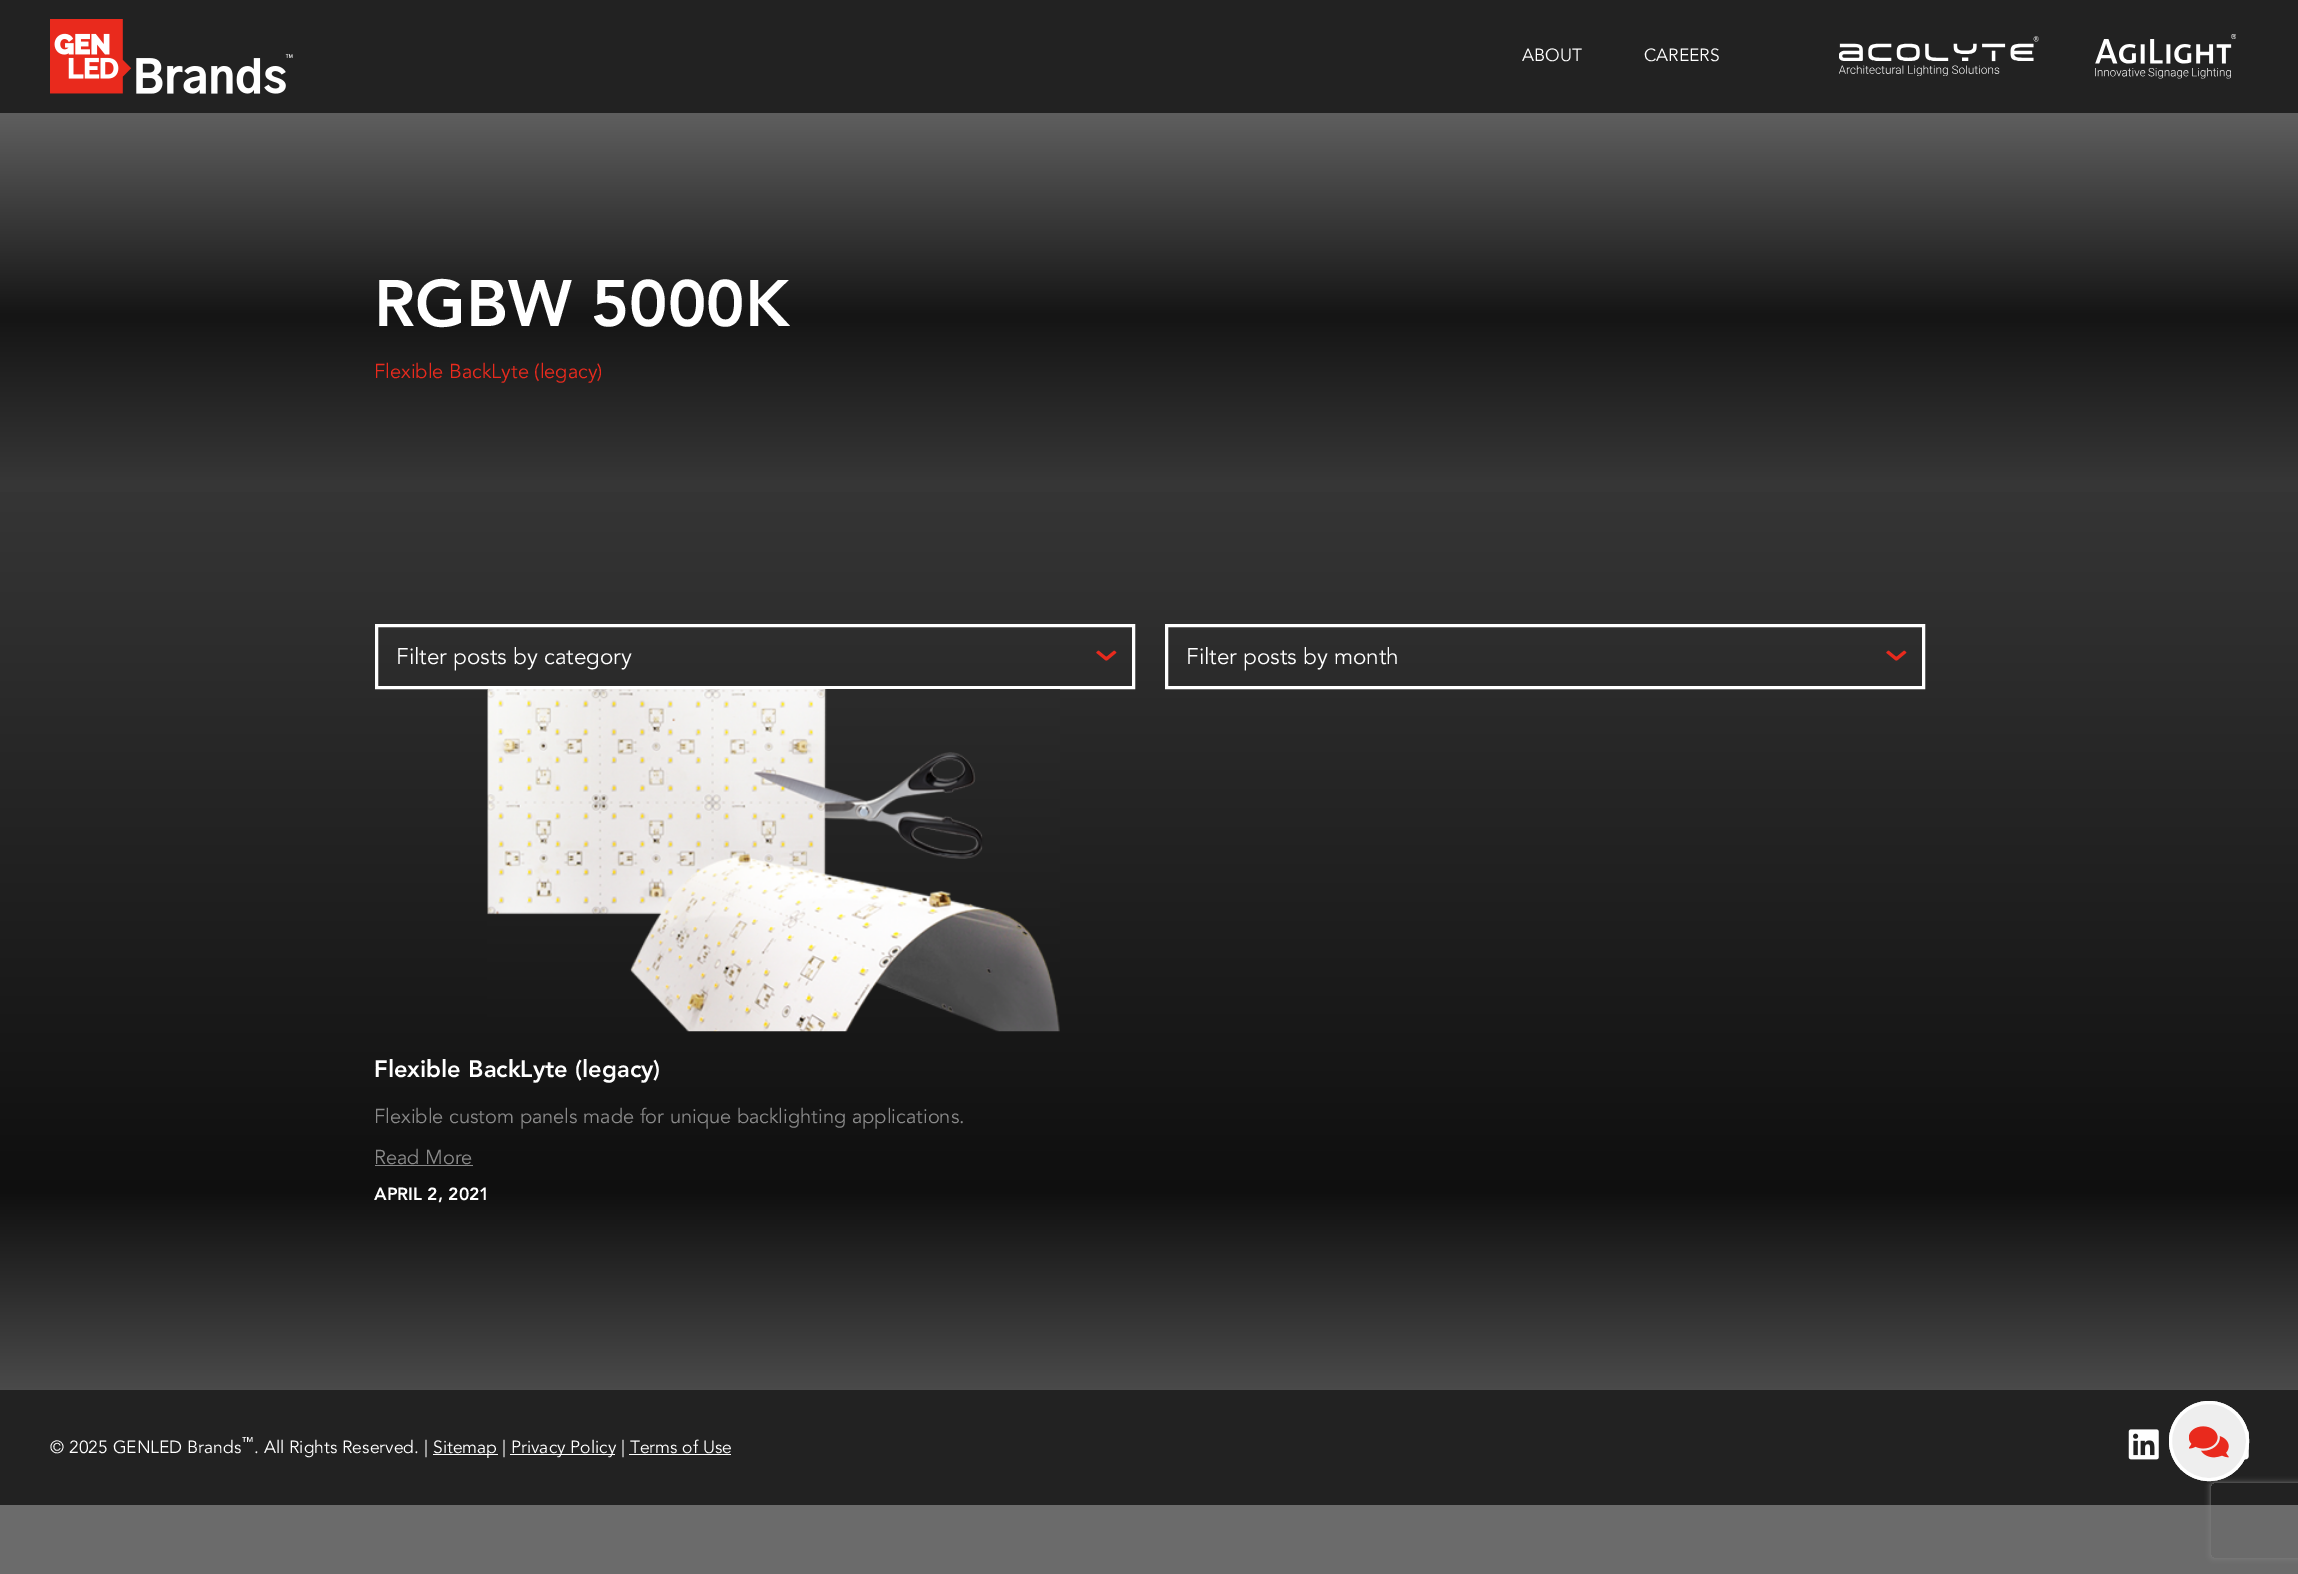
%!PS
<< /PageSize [2298 1574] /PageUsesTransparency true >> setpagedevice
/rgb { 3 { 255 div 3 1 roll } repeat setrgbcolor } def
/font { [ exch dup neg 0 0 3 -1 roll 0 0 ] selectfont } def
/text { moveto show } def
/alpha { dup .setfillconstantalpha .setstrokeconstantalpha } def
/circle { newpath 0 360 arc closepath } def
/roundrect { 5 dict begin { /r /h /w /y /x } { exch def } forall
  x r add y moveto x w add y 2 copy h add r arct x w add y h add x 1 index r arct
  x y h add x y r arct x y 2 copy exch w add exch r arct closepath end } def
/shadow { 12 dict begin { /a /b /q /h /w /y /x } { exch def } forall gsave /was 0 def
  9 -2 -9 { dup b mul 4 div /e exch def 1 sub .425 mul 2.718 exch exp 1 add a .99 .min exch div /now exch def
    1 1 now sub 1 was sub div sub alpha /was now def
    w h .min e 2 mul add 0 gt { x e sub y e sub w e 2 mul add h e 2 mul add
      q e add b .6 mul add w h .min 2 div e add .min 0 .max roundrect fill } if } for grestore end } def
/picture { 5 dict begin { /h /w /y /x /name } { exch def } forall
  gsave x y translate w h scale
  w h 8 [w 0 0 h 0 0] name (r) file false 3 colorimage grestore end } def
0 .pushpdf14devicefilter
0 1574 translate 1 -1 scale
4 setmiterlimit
107 107 107 rgb
0 0 2298 1574 rectfill
gsave 0 113 moveto 2298 0 rlineto 0 1277 rlineto -2298 0 rlineto closepath clip newpath
<< /ShadingType 2 /ColorSpace /DeviceRGB /Coords [1149 0 1149 1505] /Extend [true true] /Function << /FunctionType 3 /Domain [0 1] /Functions [<< /FunctionType 2 /Domain [0 1] /C0 [0.533 0.533 0.533] /C1 [0.082 0.082 0.082] /N 1 >> << /FunctionType 2 /Domain [0 1] /C0 [0.082 0.082 0.082] /C1 [0.212 0.212 0.212] /N 1 >> << /FunctionType 2 /Domain [0 1] /C0 [0.212 0.212 0.212] /C1 [0.059 0.059 0.059] /N 1 >> << /FunctionType 2 /Domain [0 1] /C0 [0.059 0.059 0.059] /C1 [0.42 0.42 0.42] /N 1 >>] /Bounds [0.21 0.32 0.79] /Encode [0 1 0 1 0 1 0 1] >> >> shfill grestore
34 34 34 rgb
0 0 2298 113 rectfill
(img_01.rgb) 50 19 243 75 picture
(img_02.rgb) 1839 36 200 40 picture
(img_03.rgb) 2095 34 141 45 picture
255 255 255 rgb
3 setlinewidth
376.5 625.5 757 62 rectstroke
(img_04.rgb) 1096 650 21 11 picture
1166.5 625.5 757 62 rectstroke
(img_04.rgb) 1886 650 21 11 picture
(img_05.rgb) 487 689 573 343 picture
136 136 136 rgb
375 1165 98 1 rectfill
34 34 34 rgb
0 1390 2298 115 rectfill
255 255 255 rgb
433 1454 65 1 rectfill
510 1454 105 1 rectfill
629 1454 102 1 rectfill
(img_06.rgb) 2128 1429 31 31 picture
(img_07.rgb) 2244 1429 5 31 picture
gsave
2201 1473 moveto 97 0 rlineto 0 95 rlineto -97 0 rlineto closepath 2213.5 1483 moveto 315 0 rlineto 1.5 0 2.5 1 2.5 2.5 rcurveto 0 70 rlineto 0 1.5 -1 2.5 -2.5 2.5 rcurveto -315 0 rlineto -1.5 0 -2.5 -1 -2.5 -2.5 rcurveto 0 -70 rlineto 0 -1.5 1 -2.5 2.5 -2.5 rcurveto closepath eoclip newpath
128 128 128 rgb
2211 1483 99 75 2.5 3 1 shadow
grestore
238 238 238 rgb
2209 1441 40 circle fill
(img_08.rgb) 2189 1426 40 32 picture
255 255 255 rgb
2209 1441 38.5 circle stroke
/Avenir-Regular 17.5 font
(ABOUT) 1522 61 text
(CAREERS) 1644 61 text
/Avenir-Black 65 font
(RGBW 5000K) 374 326 text
/Avenir-Regular 20 font
233 42 29 rgb
(Flexible BackLyte \(legacy\)) 374 378 text
/Avenir-Regular 22.5 font
255 255 255 rgb
(Filter posts by category) 396 664 text
(Filter posts by month) 1186 664 text
/Avenir-Black 23.75 font
(Flexible BackLyte \(legacy\)) 374 1077 text
/Avenir-Regular 20 font
137 137 137 rgb
(Flexible custom panels made for unique backlighting applications.) 374 1123 text
(Read More) 374 1164 text
/Avenir-Black 17.5 font
255 255 255 rgb
(APRIL 2, 2021) 374 1200 text
/Avenir-Regular 17.5 font
(© 2025 GENLED Brands) 50 1453 text
/LiberationSans-Regular 13 font
(™) 241 1446 text
/Avenir-Regular 17.5 font
(. All Rights Reserved. |) 254 1453 text
(Sitemap |) 433 1453 text
(Privacy Policy | Terms of Use) 511 1453 text
.poppdf14devicefilter showpage
